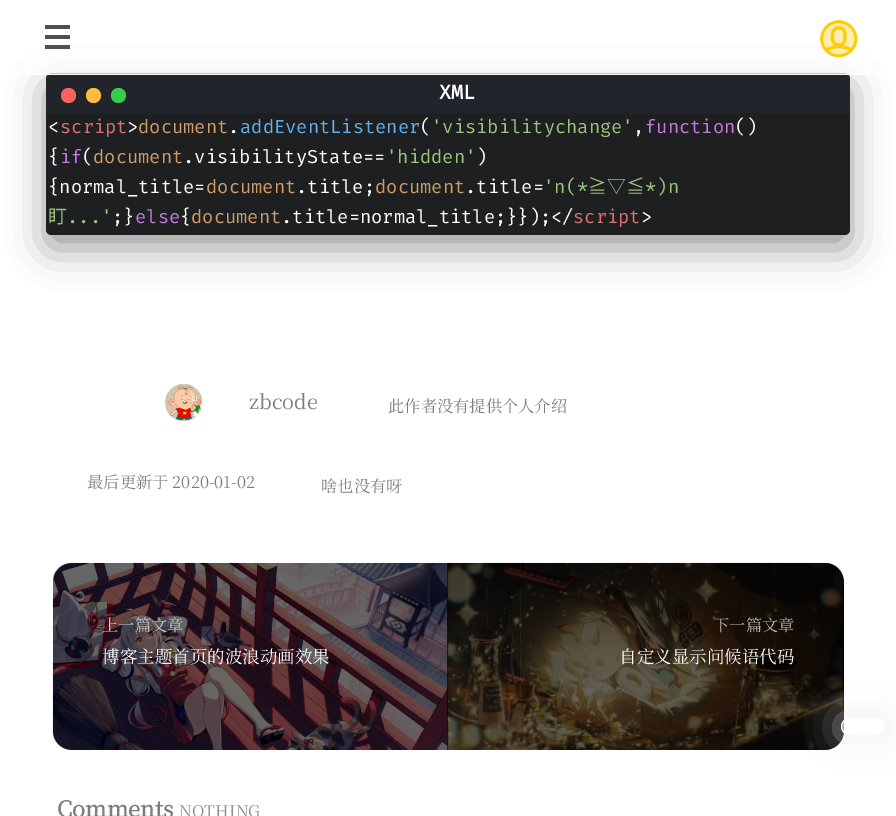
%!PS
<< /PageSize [896 816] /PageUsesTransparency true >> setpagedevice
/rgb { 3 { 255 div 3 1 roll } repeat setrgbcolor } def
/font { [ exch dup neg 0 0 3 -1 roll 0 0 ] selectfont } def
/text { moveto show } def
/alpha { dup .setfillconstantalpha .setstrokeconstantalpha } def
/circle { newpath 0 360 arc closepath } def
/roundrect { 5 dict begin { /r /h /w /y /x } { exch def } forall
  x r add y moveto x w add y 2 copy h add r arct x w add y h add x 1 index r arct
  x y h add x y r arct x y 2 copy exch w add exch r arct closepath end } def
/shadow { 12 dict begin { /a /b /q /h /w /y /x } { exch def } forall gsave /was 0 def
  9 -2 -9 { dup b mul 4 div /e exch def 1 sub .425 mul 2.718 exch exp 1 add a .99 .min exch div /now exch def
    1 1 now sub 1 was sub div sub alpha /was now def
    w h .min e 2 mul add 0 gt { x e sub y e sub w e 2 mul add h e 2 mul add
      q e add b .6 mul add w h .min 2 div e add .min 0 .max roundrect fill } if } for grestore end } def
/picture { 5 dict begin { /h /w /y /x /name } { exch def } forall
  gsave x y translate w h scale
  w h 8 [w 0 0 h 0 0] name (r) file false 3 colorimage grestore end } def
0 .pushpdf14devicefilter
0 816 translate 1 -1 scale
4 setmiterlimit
255 255 255 rgb
0 0 896 816 rectfill
0 0 0 rgb
46 85 804 163 6 19 0.4 shadow
33 37 43 rgb
46 73 804 162 6 roundrect fill
0.7 alpha
255 255 255 rgb
25 51 846 24 rectfill
1 alpha
896 75 moveto -896 0 rlineto 1 -1 rlineto 894 0 rlineto closepath fill
(img_01.rgb) 820 20 38 38 picture
80 80 80 rgb
45 35 25 4 rectfill
45 25 25 4 rectfill
45 45 25 4 rectfill
29 31 33 rgb
46 110 moveto 804 0 rlineto 0 119 rlineto 0 3.5 -2.5 6 -6 6 rcurveto -792 0 rlineto -3.5 0 -6 -2.5 -6 -6 rcurveto closepath fill
33 37 43 rgb
52 75 moveto 792 0 rlineto 3.5 0 6 2.5 6 6 rcurveto 0 32 rlineto -804 0 rlineto 0 -32 rlineto 0 -3.5 2.5 -6 6 -6 rcurveto closepath fill
53 205 75 rgb
118.5 95.5 7.5 circle fill
253 188 64 rgb
93.5 95.5 7.5 circle fill
252 98 93 rgb
68.5 95.5 7.5 circle fill
(img_02.rgb) 165 383 38 39 picture
0 0 0 rgb
53 563 791 187 19 roundrect fill
(img_03.rgb) 52 562 396 188 picture
(img_04.rgb) 447 562 397 188 picture
gsave
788 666 moveto 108 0 rlineto 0 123 rlineto -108 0 rlineto closepath 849.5 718 moveto 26 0 rlineto 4.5 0 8.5 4 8.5 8.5 rcurveto 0 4.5 -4 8.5 -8.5 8.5 rcurveto -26 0 rlineto -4.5 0 -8.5 -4 -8.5 -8.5 rcurveto 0 -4.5 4 -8.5 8.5 -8.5 rcurveto closepath eoclip newpath
232 232 232 rgb
846 724 33 7 3.5 19 1 shadow
grestore
0.65 alpha
255 255 255 rgb
841.5 718.5 42 16 8 roundrect fill
1 alpha
841.5 718.5 42 16 8 roundrect stroke
/FiraCode-Bold 20 font
(XML) 439 99 text
/FiraCode-Light 18.75 font
(<) 48 133 text
224 108 117 rgb
(script) 60 133 text
255 255 255 rgb
(>) 127 133 text
209 154 102 rgb
(document) 138 133 text
255 255 255 rgb
(.) 228 133 text
97 174 238 rgb
(addEventListener) 240 133 text
255 255 255 rgb
(\() 420 133 text
152 195 121 rgb
('visibilitychange') 431 133 text
255 255 255 rgb
(,) 633 133 text
198 120 221 rgb
(function) 645 133 text
255 255 255 rgb
(\(\)) 735 133 text
({) 48 163 text
198 120 221 rgb
(if) 60 163 text
255 255 255 rgb
(\() 82 163 text
209 154 102 rgb
(document) 93 163 text
255 255 255 rgb
(.visibilityState==) 183 163 text
152 195 121 rgb
('hidden') 386 163 text
255 255 255 rgb
(\)) 476 163 text
({normal_title=) 48 193 text
209 154 102 rgb
(document) 206 193 text
255 255 255 rgb
(.title;) 296 193 text
209 154 102 rgb
(document) 375 193 text
255 255 255 rgb
(.title=) 465 193 text
152 195 121 rgb
('n\(*) 543 193 text
/NotoSansSC-Thin 18.75 font
(≧▽≦) 588 193 text
/FiraCode-Light 18.75 font
(*\)n) 645 193 text
/NotoSansSC-Thin 18.75 font
(盯) 48 223 text
/FiraCode-Light 18.75 font
(...') 67 223 text
255 255 255 rgb
(;}) 112 223 text
198 120 221 rgb
(else) 135 223 text
255 255 255 rgb
({) 180 223 text
209 154 102 rgb
(document) 191 223 text
255 255 255 rgb
(.title=normal_title;}}\);</) 281 223 text
224 108 117 rgb
(script) 573 223 text
255 255 255 rgb
(>) 641 223 text
/NotoSerifSC-ExtraLight 20 font
125 125 125 rgb
(zbcode) 249 409 text
/NotoSerifSC-ExtraLight 16.25 font
(此作者没有提供个人介绍) 388 412 text
(最后更新于 2020-01-02) 87 488 text
(啥也没有呀) 321 492 text
202 200 201 rgb
(上一篇文章) 102 631 text
/NotoSerifSC-ExtraLight 17.5 font
255 255 255 rgb
(博客主题首页的波浪动画效果) 102 663 text
/NotoSerifSC-ExtraLight 16.25 font
185 183 180 rgb
(下一篇文章) 713 631 text
/NotoSerifSC-ExtraLight 17.5 font
255 255 255 rgb
(自定义显示问候语代码) 619 663 text
/NotoSerifSC-Bold 22 font
125 125 125 rgb
(Comments) 57 817 text
/NotoSerifSC-ExtraLight 16.25 font
144 144 144 rgb
(NOTHING) 179 817 text
.poppdf14devicefilter showpage
